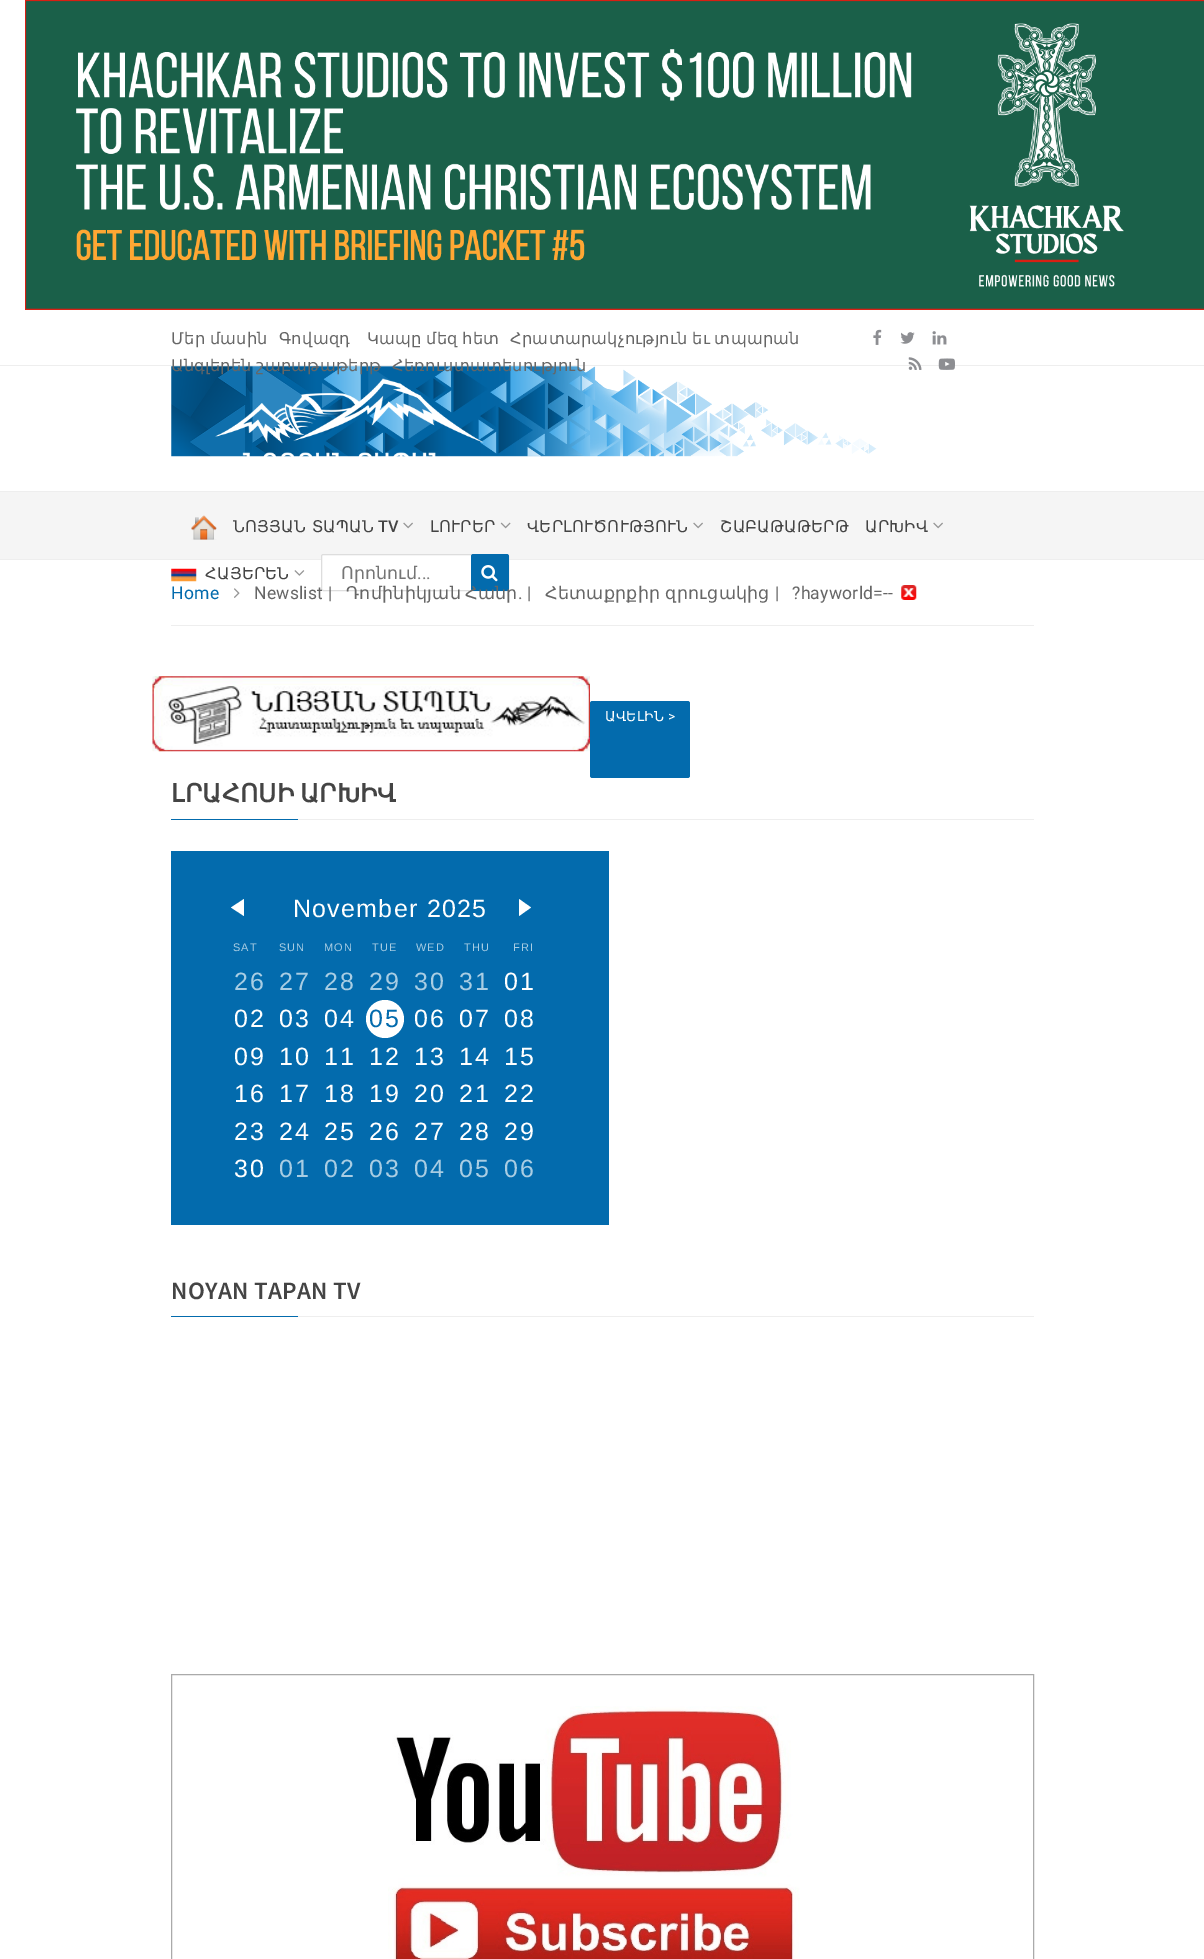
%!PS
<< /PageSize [1204 1959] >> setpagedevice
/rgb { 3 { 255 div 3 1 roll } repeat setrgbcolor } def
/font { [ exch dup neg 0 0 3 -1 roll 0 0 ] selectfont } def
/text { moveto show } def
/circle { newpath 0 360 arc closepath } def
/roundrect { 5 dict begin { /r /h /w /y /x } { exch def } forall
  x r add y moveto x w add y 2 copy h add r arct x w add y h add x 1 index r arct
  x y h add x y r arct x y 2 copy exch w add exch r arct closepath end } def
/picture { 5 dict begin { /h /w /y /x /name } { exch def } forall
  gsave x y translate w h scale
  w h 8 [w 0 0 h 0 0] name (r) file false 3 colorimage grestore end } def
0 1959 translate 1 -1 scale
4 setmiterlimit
255 255 255 rgb
0 0 1204 1959 rectfill
(img_01.rgb) 25 0 1179 310 picture
238 238 238 rgb
0 365 1204 1 rectfill
(img_02.rgb) 873 329 9 16 picture
(img_03.rgb) 900 332 15 12 picture
(img_04.rgb) 932 331 15 14 picture
(img_05.rgb) 908 357 14 13 picture
(img_06.rgb) 938 358 17 12 picture
(img_07.rgb) 171 366 706 91 picture
(img_08.rgb) 215 378 269 79 picture
245 245 245 rgb
0 492 1204 67 rectfill
238 238 238 rgb
0 491 1204 1 rectfill
0 559 1204 1 rectfill
(img_09.rgb) 191 515 26 25 picture
(img_10.rgb) 403 522 10 7 picture
(img_11.rgb) 500 522 11 7 picture
(img_10.rgb) 693 522 10 7 picture
(img_10.rgb) 933 522 10 7 picture
(img_12.rgb) 171 568 26 14 picture
(img_13.rgb) 294 570 11 6 picture
255 255 255 rgb
321.5 554.5 187 36 2 roundrect gsave fill grestore
221 221 221 rgb
stroke
3 107 173 rgb
471 554 38 37 2.5 roundrect fill
(img_14.rgb) 481 565 17 17 picture
238 238 238 rgb
171 625 863 1 rectfill
(img_15.rgb) 234 588 6 10 picture
(img_16.rgb) 901 585 16 15 picture
(img_17.rgb) 152 676 438 76 picture
3 107 173 rgb
590 701 100 77 2.5 roundrect fill
238 238 238 rgb
298 819 736 1 rectfill
3 107 173 rgb
171 819 127 1 rectfill
171 851 438 374 rectfill
255 255 255 rgb
244 899 moveto 0 17 rlineto -13 -8.5 rlineto closepath fill
519 916 moveto 0 -17 rlineto 12 8.5 rlineto closepath fill
385 1019 19 circle fill
238 238 238 rgb
298 1316 736 1 rectfill
3 107 173 rgb
171 1316 127 1 rectfill
170 170 170 rgb
171.5 1674.5 862 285 rectstroke
(img_18.rgb) 388 1706 412 253 picture
/DejaVuSans-Regular 16.25 font
102 102 102 rgb
171 344 moveto -1 0 32 0.25 0 (Մեր մասին) awidthshow
279 344 moveto 0.25 0 (Գովազդ) ashow
367 344 moveto -1 0 32 0.25 0 (Կապը մեզ հետ) awidthshow
510 344 moveto -1 0 32 0.25 0 (Հրատարակչություն եւ տպարան) awidthshow
171 371 moveto -1 0 32 0.25 0 (Անգլերեն շաբաթաթերթ) awidthshow
392 371 moveto 0.25 0 (Հեռուստատեսություն) ashow
68 68 68 rgb
233 532 moveto 0.25 0 (ՆՈՅՅԱՆ ՏԱՊԱՆ) ashow
/Roboto-Medium 16.25 font
378 532 moveto 0.25 0 (TV) ashow
/DejaVuSans-Regular 16.25 font
430 532 moveto 0.25 0 (ԼՈՒՐԵՐ) ashow
527 532 moveto 0.25 0 (ՎԵՐԼՈՒԾՈՒԹՅՈՒՆ) ashow
720 532 moveto 0.25 0 (ՇԱԲԱԹԱԹԵՐԹ) ashow
865 532 moveto 0.25 0 (ԱՐԽԻՎ) ashow
205 579 moveto 0.25 0 (ՀԱՅԵՐԵՆ) ashow
/DejaVuSans-Regular 17.5 font
117 117 117 rgb
(Որոնում) 341 579 text
/Roboto-Regular 17.5 font
(...) 417 579 text
3 107 173 rgb
171 599 moveto 0.25 0 (Home) ashow
102 102 102 rgb
254 599 moveto 0.25 0 (Newslist |) ashow
/DejaVuSans-Regular 17.5 font
346 599 moveto 0.25 0 (Դոմինիկյան) ashow
465 599 moveto 0.25 0 (Հանր) ashow
/Roboto-Regular 17.5 font
518 599 moveto 0.25 0 (. |) ashow
/DejaVuSans-Regular 17.5 font
545 599 moveto -1 0 32 0.25 0 (Հետաքրքիր զրուցակից) awidthshow
/Roboto-Regular 17.5 font
775 599 moveto 0.25 0 (|) ashow
792 599 moveto 0.25 0 (?hayworld=--) ashow
/DejaVuSans-Regular 13.75 font
255 255 255 rgb
605 721 moveto 0.25 0 (ԱՎԵԼԻՆ) ashow
/Roboto-Regular 13.75 font
668 721 moveto 0.25 0 (>) ashow
/DejaVuSans-Bold 25 font
68 68 68 rgb
171 802 moveto -3 0 32 0.25 0 (ԼՐԱՀՈՍԻ ԱՐԽԻՎ) awidthshow
/LiberationSans-Regular 25 font
255 255 255 rgb
293 917 moveto 1.25 0 (November 2025) ashow
/LiberationSans-Regular 11 font
169 205 227 rgb
233 951 moveto 1 0 (SAT) ashow
279 951 moveto 1 0 (SUN) ashow
324 951 moveto 1 0 (MON) ashow
372 951 moveto 1 0 (TUE) ashow
416 951 moveto 1 0 (WED) ashow
464 951 moveto 1 0 (THU) ashow
513 951 moveto 1 0 (FRI) ashow
/LiberationSans-Regular 25 font
234 990 moveto 2 0 (26) ashow
279 990 moveto 2 0 (27) ashow
324 990 moveto 2 0 (28) ashow
369 990 moveto 2 0 (29) ashow
414 990 moveto 2 0 (30) ashow
459 990 moveto 2 0 (31) ashow
255 255 255 rgb
504 990 moveto 2 0 (01) ashow
234 1027 moveto 2 0 (02) ashow
279 1027 moveto 2 0 (03) ashow
324 1027 moveto 2 0 (04) ashow
3 107 173 rgb
369 1027 moveto 2 0 (05) ashow
255 255 255 rgb
414 1027 moveto 2 0 (06) ashow
459 1027 moveto 2 0 (07) ashow
504 1027 moveto 2 0 (08) ashow
234 1065 moveto 2 0 (09) ashow
279 1065 moveto 2 0 (10) ashow
324 1065 moveto 2 0 (11) ashow
369 1065 moveto 2 0 (12) ashow
414 1065 moveto 2 0 (13) ashow
459 1065 moveto 2 0 (14) ashow
504 1065 moveto 2 0 (15) ashow
234 1102 moveto 2 0 (16) ashow
279 1102 moveto 2 0 (17) ashow
324 1102 moveto 2 0 (18) ashow
369 1102 moveto 2 0 (19) ashow
414 1102 moveto 2 0 (20) ashow
459 1102 moveto 2 0 (21) ashow
504 1102 moveto 2 0 (22) ashow
234 1140 moveto 2 0 (23) ashow
279 1140 moveto 2 0 (24) ashow
324 1140 moveto 2 0 (25) ashow
369 1140 moveto 2 0 (26) ashow
414 1140 moveto 2 0 (27) ashow
459 1140 moveto 2 0 (28) ashow
504 1140 moveto 2 0 (29) ashow
234 1177 moveto 2 0 (30) ashow
169 205 227 rgb
279 1177 moveto 2 0 (01) ashow
324 1177 moveto 2 0 (02) ashow
369 1177 moveto 2 0 (03) ashow
414 1177 moveto 2 0 (04) ashow
459 1177 moveto 2 0 (05) ashow
504 1177 moveto 2 0 (06) ashow
/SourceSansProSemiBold-SemiBold 25 font
68 68 68 rgb
171 1299 moveto 0.25 0 (NOYAN TAPAN TV) ashow
showpage
